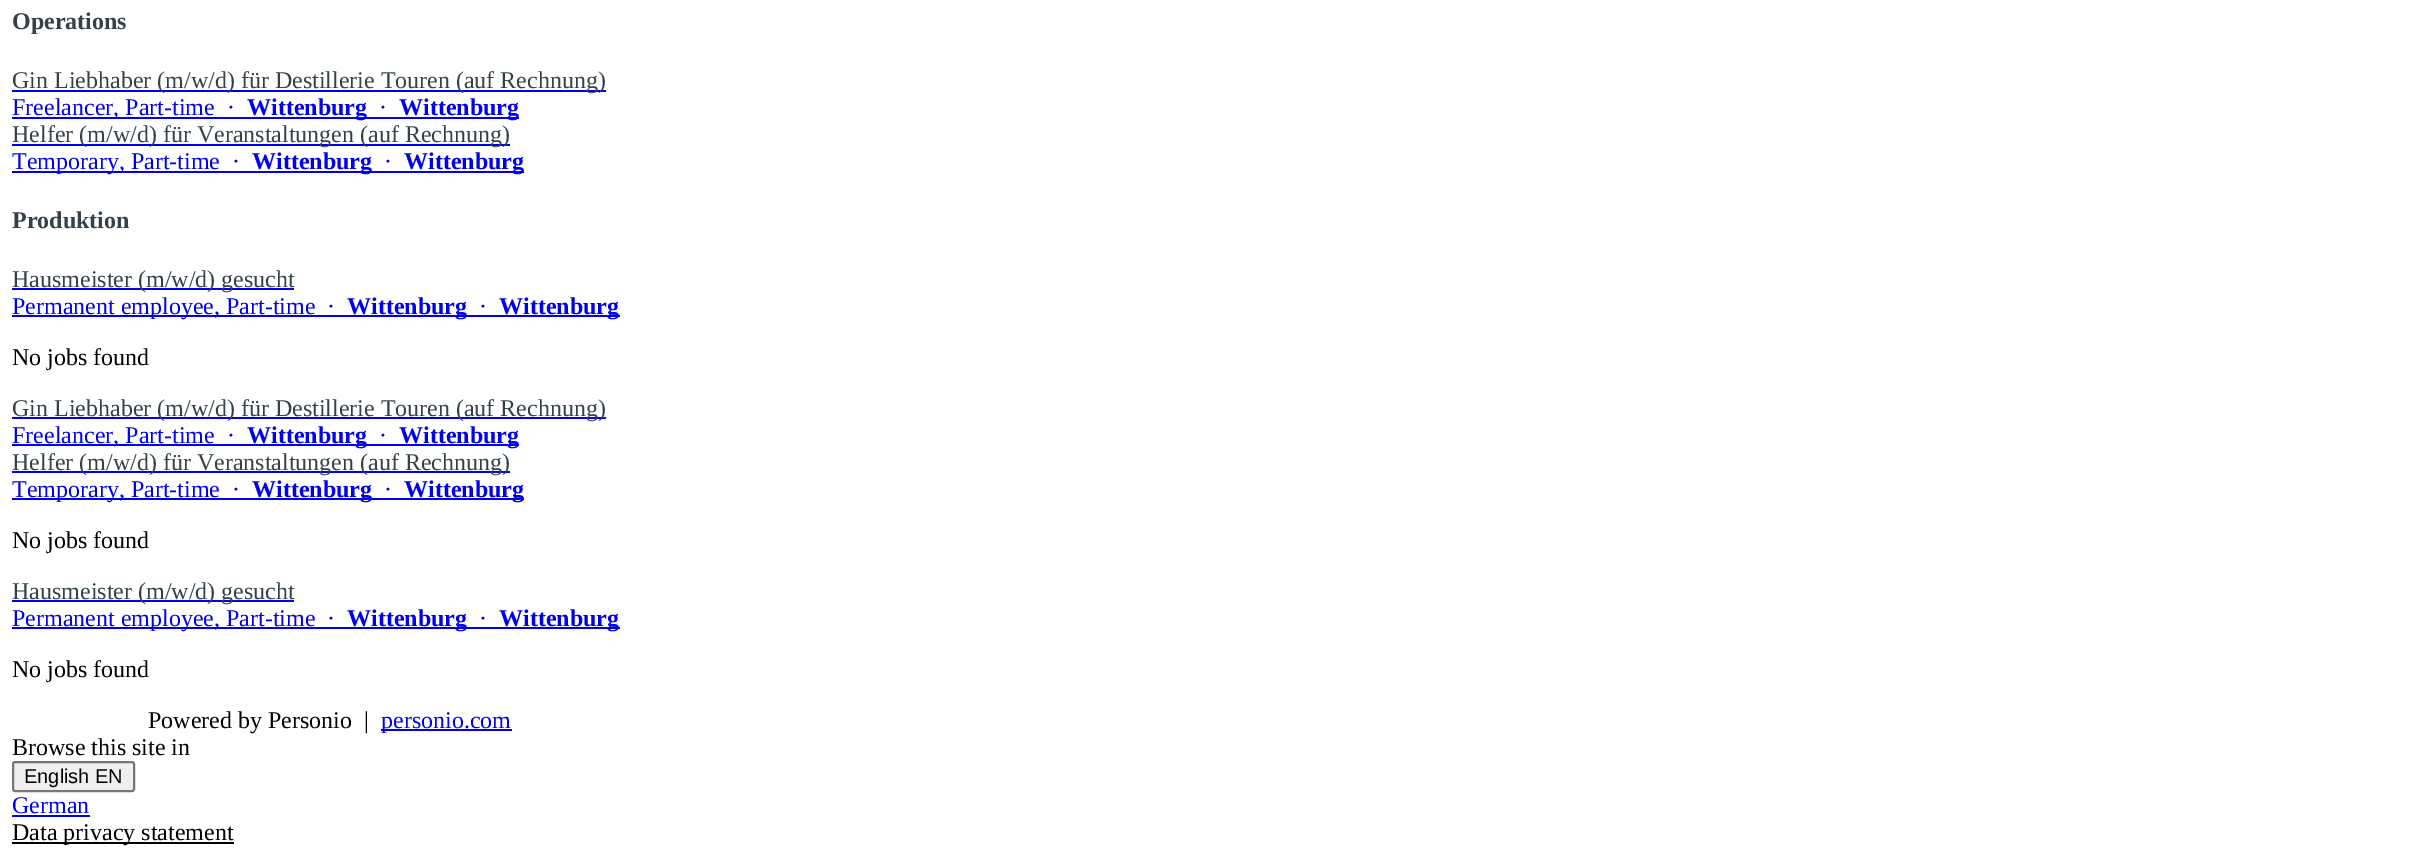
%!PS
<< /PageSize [2435 857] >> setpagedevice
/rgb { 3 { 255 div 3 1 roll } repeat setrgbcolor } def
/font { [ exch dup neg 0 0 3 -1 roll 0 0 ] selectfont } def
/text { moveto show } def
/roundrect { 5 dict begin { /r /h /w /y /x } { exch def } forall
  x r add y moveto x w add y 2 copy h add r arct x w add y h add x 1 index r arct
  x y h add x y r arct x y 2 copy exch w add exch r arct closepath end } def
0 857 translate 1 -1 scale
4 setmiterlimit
255 255 255 rgb
0 0 2435 857 rectfill
0 0 238 rgb
12 90 594 2 rectfill
12 117 354 2 rectfill
366 117 153 2 rectfill
12 144 498 2 rectfill
12 171 512 2 rectfill
12 288 282 2 rectfill
12 315 608 2 rectfill
12 417 594 2 rectfill
12 444 354 2 rectfill
366 444 153 2 rectfill
12 471 498 2 rectfill
12 498 512 2 rectfill
12 600 282 2 rectfill
12 627 608 2 rectfill
381 729 131 2 rectfill
239 239 239 rgb
13 762 121 29 2 roundrect gsave fill grestore
118 118 118 rgb
2 setlinewidth
stroke
0 0 238 rgb
12 815 78 2 rectfill
0 0 0 rgb
12 842 222 2 rectfill
/LiberationSerif-Bold 24 font
51 66 72 rgb
(Operations) 12 29 text
/LiberationSerif-Regular 24 font
(Gin Liebhaber \(m/w/d\) für Destillerie Touren \(auf Rechnung\)) 12 88 text
0 0 238 rgb
(Freelancer, Part-time) 12 115 text
(·) 227 115 text
/LiberationSerif-Bold 24 font
(Wittenburg) 247 115 text
/LiberationSerif-Regular 24 font
(·) 379 115 text
/LiberationSerif-Bold 24 font
(Wittenburg) 399 115 text
/LiberationSerif-Regular 24 font
51 66 72 rgb
(Helfer \(m/w/d\) für Veranstaltungen \(auf Rechnung\)) 12 142 text
0 0 238 rgb
(Temporary, Part-time) 12 169 text
(·) 232 169 text
/LiberationSerif-Bold 24 font
(Wittenburg) 252 169 text
/LiberationSerif-Regular 24 font
(·) 384 169 text
/LiberationSerif-Bold 24 font
(Wittenburg) 404 169 text
51 66 72 rgb
(Produktion) 12 228 text
/LiberationSerif-Regular 24 font
(Hausmeister \(m/w/d\) gesucht) 12 287 text
0 0 238 rgb
(Permanent employee, Part-time) 12 314 text
(·) 327 314 text
/LiberationSerif-Bold 24 font
(Wittenburg) 347 314 text
/LiberationSerif-Regular 24 font
(·) 479 314 text
/LiberationSerif-Bold 24 font
(Wittenburg) 499 314 text
/LiberationSerif-Regular 24 font
0 0 0 rgb
(No jobs found) 12 365 text
51 66 72 rgb
(Gin Liebhaber \(m/w/d\) für Destillerie Touren \(auf Rechnung\)) 12 416 text
0 0 238 rgb
(Freelancer, Part-time) 12 443 text
(·) 227 443 text
/LiberationSerif-Bold 24 font
(Wittenburg) 247 443 text
/LiberationSerif-Regular 24 font
(·) 379 443 text
/LiberationSerif-Bold 24 font
(Wittenburg) 399 443 text
/LiberationSerif-Regular 24 font
51 66 72 rgb
(Helfer \(m/w/d\) für Veranstaltungen \(auf Rechnung\)) 12 470 text
0 0 238 rgb
(Temporary, Part-time) 12 497 text
(·) 232 497 text
/LiberationSerif-Bold 24 font
(Wittenburg) 252 497 text
/LiberationSerif-Regular 24 font
(·) 384 497 text
/LiberationSerif-Bold 24 font
(Wittenburg) 404 497 text
/LiberationSerif-Regular 24 font
0 0 0 rgb
(No jobs found) 12 548 text
51 66 72 rgb
(Hausmeister \(m/w/d\) gesucht) 12 599 text
0 0 238 rgb
(Permanent employee, Part-time) 12 626 text
(·) 327 626 text
/LiberationSerif-Bold 24 font
(Wittenburg) 347 626 text
/LiberationSerif-Regular 24 font
(·) 479 626 text
/LiberationSerif-Bold 24 font
(Wittenburg) 499 626 text
/LiberationSerif-Regular 24 font
0 0 0 rgb
(No jobs found) 12 677 text
(Powered by Personio) 148 728 text
(|) 364 728 text
0 0 238 rgb
(personio.com) 381 728 text
0 0 0 rgb
(Browse this site in) 12 755 text
/LiberationSans-Regular 20 font
(English EN) 24 783 text
/LiberationSerif-Regular 24 font
0 0 238 rgb
(German) 12 813 text
0 0 0 rgb
(Data privacy statement) 12 840 text
showpage
